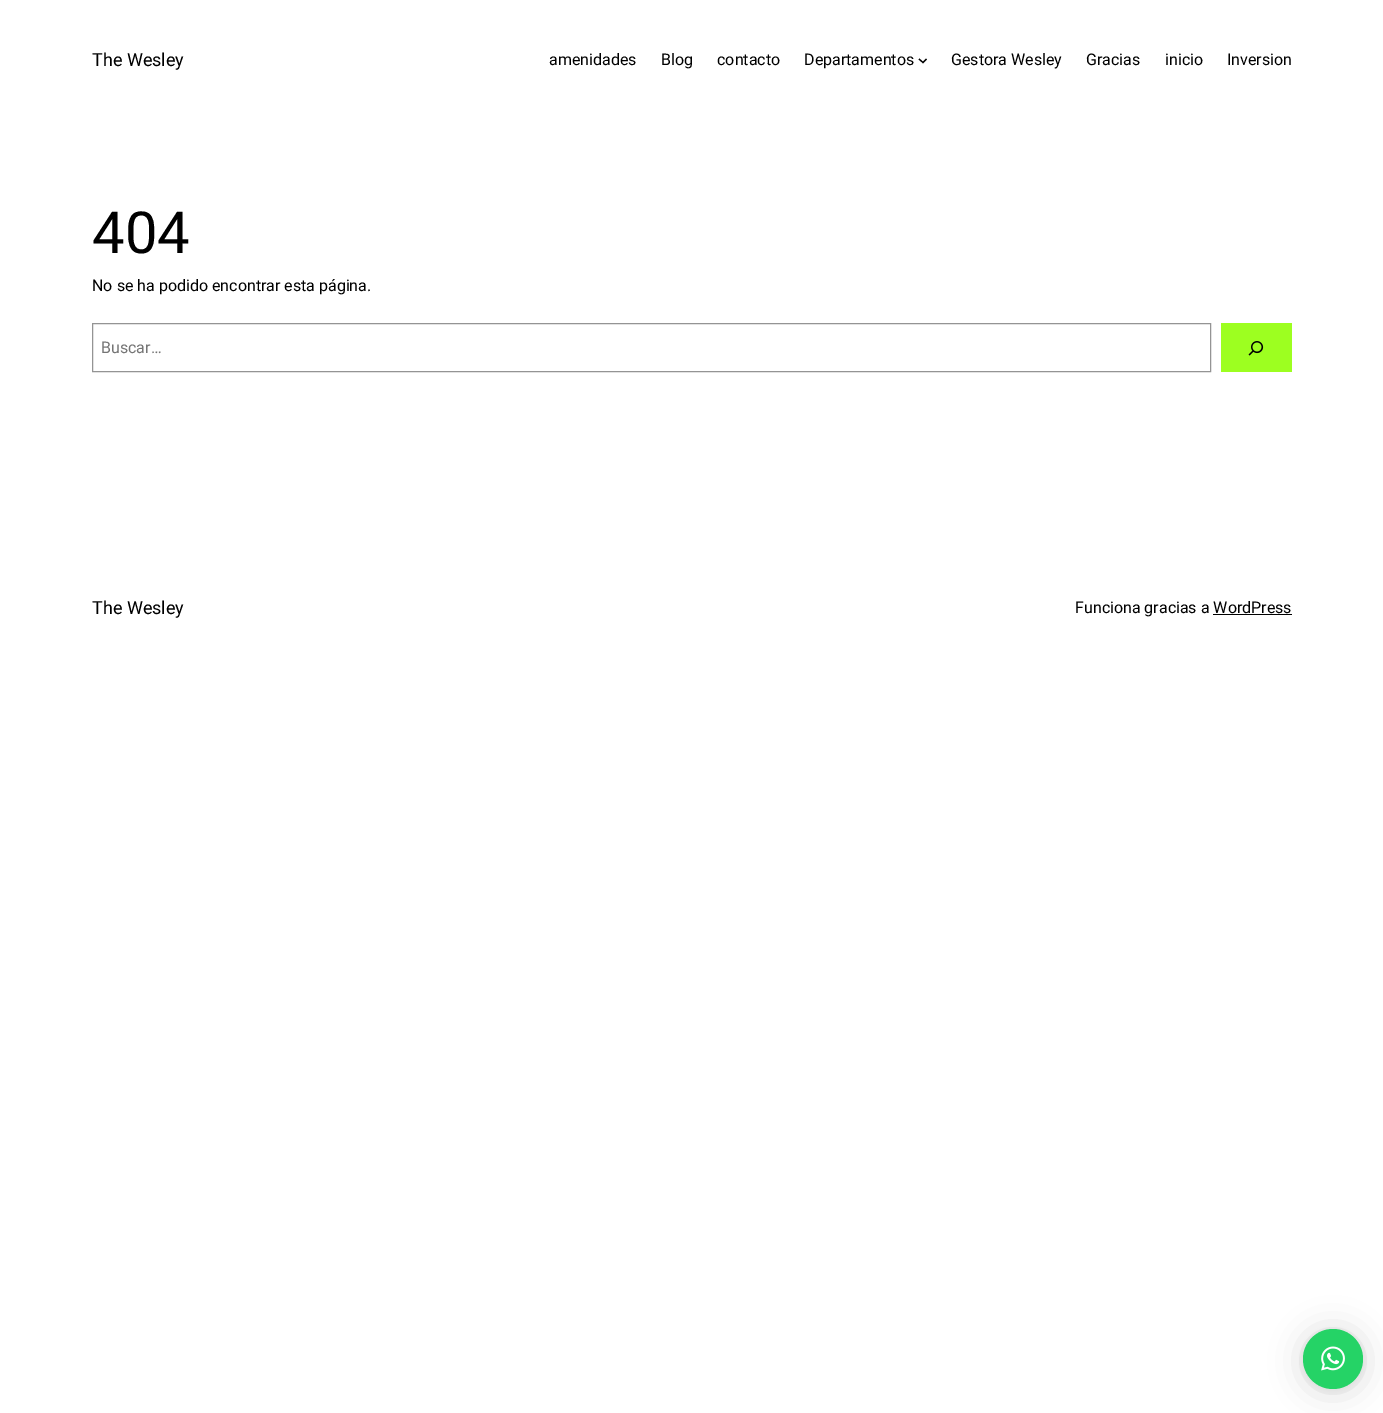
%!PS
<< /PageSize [1383 1413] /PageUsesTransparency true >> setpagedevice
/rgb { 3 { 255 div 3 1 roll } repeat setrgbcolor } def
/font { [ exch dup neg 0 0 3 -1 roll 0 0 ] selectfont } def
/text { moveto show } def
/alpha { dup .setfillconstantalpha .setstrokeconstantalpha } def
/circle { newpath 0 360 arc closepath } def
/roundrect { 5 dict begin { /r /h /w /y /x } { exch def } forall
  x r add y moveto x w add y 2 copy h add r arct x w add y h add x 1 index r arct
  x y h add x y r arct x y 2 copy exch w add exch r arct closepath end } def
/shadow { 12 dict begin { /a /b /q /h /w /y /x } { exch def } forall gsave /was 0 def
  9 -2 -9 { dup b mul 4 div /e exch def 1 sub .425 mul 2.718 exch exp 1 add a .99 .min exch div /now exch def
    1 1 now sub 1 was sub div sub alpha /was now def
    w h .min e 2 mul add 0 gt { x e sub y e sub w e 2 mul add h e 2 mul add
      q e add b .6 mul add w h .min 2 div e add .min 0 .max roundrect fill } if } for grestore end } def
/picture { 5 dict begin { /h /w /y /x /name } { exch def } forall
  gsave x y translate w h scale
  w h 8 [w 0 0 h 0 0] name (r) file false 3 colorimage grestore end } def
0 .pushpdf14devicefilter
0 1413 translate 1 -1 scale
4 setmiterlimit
255 255 255 rgb
0 0 1383 1413 rectfill
0 0 0 rgb
1.2 setlinewidth
919 59 moveto 4 3.5 rlineto 3.5 -3.5 rlineto stroke
148 148 148 rgb
1 setlinewidth
92.5 323.5 1118 48 rectstroke
157 255 32 rgb
1221 323 71 49 rectfill
(img_01.rgb) 1248 341 16 15 picture
0 0 0 rgb
1213 614 79 1 rectfill
1303 1331 60 60 30 16 0.16 shadow
1303 1330 60 60 30 3 0.06 shadow
37 211 102 rgb
1333 1359 30 circle fill
(img_02.rgb) 1321 1346 24 25 picture
/Roboto-Regular 18 font
0 0 0 rgb
(The Wesley) 92 66 text
/Roboto-Regular 16 font
(amenidades) 549 65 text
(Blog) 661 65 text
(contacto) 717 65 text
(Departamentos) 804 65 text
(Gestora Wesley) 951 65 text
(Gracias) 1086 65 text
(inicio) 1165 65 text
(Inversion) 1227 65 text
/Roboto-Regular 58 font
(404) 92 253 text
/Roboto-Regular 16 font
(No se ha podido encontrar esta página.) 92 291 text
117 117 117 rgb
(Buscar…) 101 353 text
/Roboto-Regular 18 font
0 0 0 rgb
(The Wesley) 92 614 text
/Roboto-Regular 16 font
(Funciona gracias a WordPress) 1075 613 text
.poppdf14devicefilter showpage
